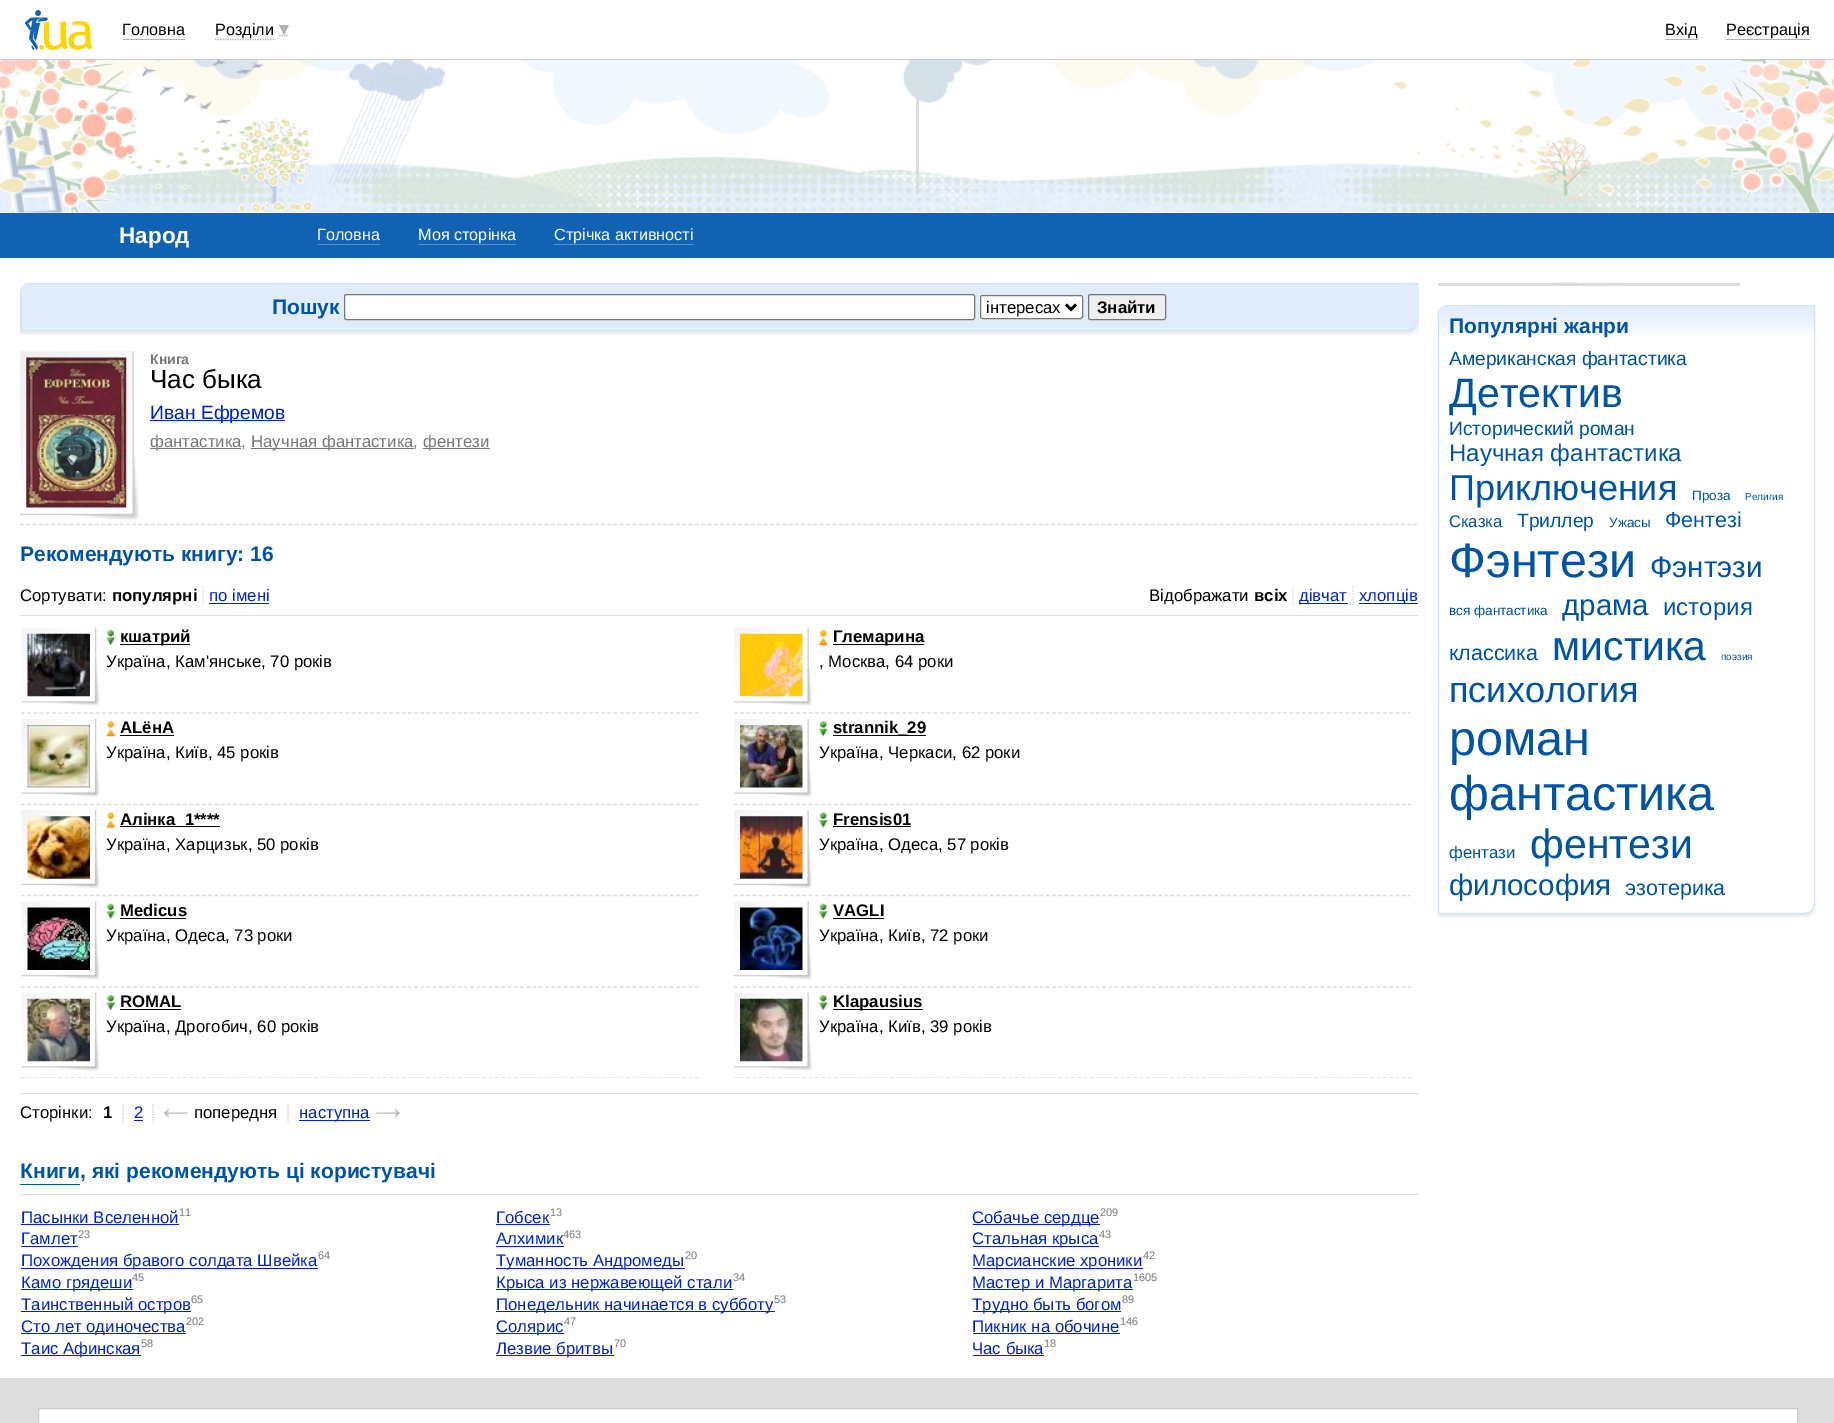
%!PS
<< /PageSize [1834 1423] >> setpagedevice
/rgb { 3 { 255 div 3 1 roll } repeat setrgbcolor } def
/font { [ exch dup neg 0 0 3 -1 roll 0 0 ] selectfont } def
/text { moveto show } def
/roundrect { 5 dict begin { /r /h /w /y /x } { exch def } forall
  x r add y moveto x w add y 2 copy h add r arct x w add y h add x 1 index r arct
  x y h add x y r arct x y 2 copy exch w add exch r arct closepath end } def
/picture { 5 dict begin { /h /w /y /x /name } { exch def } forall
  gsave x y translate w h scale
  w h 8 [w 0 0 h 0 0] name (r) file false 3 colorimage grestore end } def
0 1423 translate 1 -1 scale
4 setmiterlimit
255 255 255 rgb
0 0 1834 1423 rectfill
204 204 204 rgb
0 59 1834 1 rectfill
(img_01.rgb) 25 10 68 40 picture
179 179 179 rgb
123 39 62 1 rectfill
1.2 setlinewidth
[1.25 1.25] 0 setdash
215 39.5 moveto 59 0 rlineto stroke
279 35.5 moveto 10 0 rlineto stroke
279 25 moveto 10 0 rlineto -5 10 rlineto closepath fill
1665 39 33 1 rectfill
1726 39 84 1 rectfill
(img_02.rgb) 0 60 1834 153 picture
221 221 221 rgb
916 79 3 115 rectfill
17 98 179 rgb
0 213 1834 45 rectfill
88 145 202 rgb
318 244 62 1 rectfill
418 244 98 1 rectfill
554 244 140 1 rectfill
(img_03.rgb) 20 331 1398 4 picture
225 236 250 rgb
20.5 283.5 moveto 1397 0 rlineto 0 47 rlineto -1397 0 rlineto closepath gsave fill grestore
206 227 247 rgb
1 setlinewidth
[] 0 setdash
stroke
(img_04.rgb) 20 282 10 10 picture
255 255 255 rgb
344.5 294.5 630 25 2 roundrect gsave fill grestore
118 118 118 rgb
stroke
255 255 255 rgb
980.5 295.5 102 23 2 roundrect gsave fill grestore
118 118 118 rgb
stroke
0 0 0 rgb
2.5 setlinewidth
1066 304.5 moveto 5 5 rlineto 5 -5 rlineto stroke
239 239 239 rgb
1088.5 294.5 77 25 2 roundrect gsave fill grestore
118 118 118 rgb
1 setlinewidth
stroke
(img_05.rgb) 1407 321 11 15 picture
221 221 221 rgb
1.2 setlinewidth
[3.75 2.5] 0 setdash
20 524.5 moveto 1397.5 0 rlineto stroke
(img_06.rgb) 20 351 119 170 picture
(img_07.rgb) 26 357 101 151 picture
0 34 204 rgb
150 420 135 1 rectfill
119 119 119 rgb
150 448 91 1 rectfill
251 448 163 1 rectfill
423 448 67 1 rectfill
221 221 221 rgb
[1.25 1.25] 0 setdash
203 586 moveto 0 19 rlineto stroke
0 34 204 rgb
209 603 60 1 rectfill
221 221 221 rgb
1293 586 moveto 0 19 rlineto stroke
1353 586 moveto 0 19 rlineto stroke
0 34 204 rgb
1299 603 49 1 rectfill
1359 603 59 1 rectfill
221 221 221 rgb
20 615 1398 1 rectfill
[3.75 2.49] 0 setdash
21 713 moveto 678 0 rlineto stroke
(img_08.rgb) 21 627 79 79 picture
(img_09.rgb) 27 633 63 64 picture
(img_10.rgb) 106 630 10 15 picture
0 0 0 rgb
120 644 70 1 rectfill
221 221 221 rgb
734 713 moveto 677 0 rlineto stroke
(img_11.rgb) 734 627 78 79 picture
(img_12.rgb) 740 633 63 64 picture
(img_13.rgb) 818 630 10 15 picture
0 0 0 rgb
833 644 91 1 rectfill
221 221 221 rgb
21 804.5 moveto 678 0 rlineto stroke
(img_14.rgb) 21 719 79 78 picture
(img_15.rgb) 27 725 63 63 picture
(img_16.rgb) 106 721 10 16 picture
0 0 0 rgb
120 735 54 1 rectfill
221 221 221 rgb
734 804.5 moveto 677 0 rlineto stroke
(img_17.rgb) 734 719 78 78 picture
(img_18.rgb) 740 725 63 63 picture
(img_19.rgb) 818 721 10 16 picture
0 0 0 rgb
833 735 93 1 rectfill
221 221 221 rgb
21 895.5 moveto 678 0 rlineto stroke
(img_20.rgb) 21 810 79 78 picture
(img_21.rgb) 27 816 63 63 picture
(img_22.rgb) 106 812 10 16 picture
0 0 0 rgb
120 826 100 1 rectfill
221 221 221 rgb
734 895.5 moveto 677 0 rlineto stroke
(img_23.rgb) 734 810 78 78 picture
(img_24.rgb) 740 816 63 63 picture
(img_25.rgb) 818 812 10 16 picture
0 0 0 rgb
833 826 78 1 rectfill
221 221 221 rgb
21 987 moveto 678 0 rlineto stroke
(img_26.rgb) 21 901 79 79 picture
(img_27.rgb) 27 907 63 63 picture
(img_28.rgb) 106 903 10 16 picture
0 0 0 rgb
120 918 66 1 rectfill
221 221 221 rgb
734 987 moveto 677 0 rlineto stroke
(img_29.rgb) 734 901 78 79 picture
(img_30.rgb) 740 907 63 63 picture
(img_31.rgb) 818 903 10 16 picture
0 0 0 rgb
833 918 51 1 rectfill
gsave
0 621 1418 457 rectclip
221 221 221 rgb
21 1078 moveto 678 0 rlineto stroke
grestore
(img_08.rgb) 21 992 79 79 picture
(img_32.rgb) 27 998 63 64 picture
(img_10.rgb) 106 995 10 15 picture
120 1009 61 1 rectfill
gsave
0 621 1418 457 rectclip
221 221 221 rgb
734 1078 moveto 677 0 rlineto stroke
grestore
(img_11.rgb) 734 992 78 79 picture
(img_33.rgb) 740 998 63 64 picture
(img_34.rgb) 818 995 10 15 picture
833 1009 90 1 rectfill
221 221 221 rgb
20 1093 1398 1 rectfill
204 204 204 rgb
[1.25 1.25] 0 setdash
123 1104 moveto 0 18.5 rlineto stroke
153 1104 moveto 0 18.5 rlineto stroke
0 34 204 rgb
134 1120 9 1 rectfill
204 204 204 rgb
288 1104 moveto 0 18.5 rlineto stroke
(img_35.rgb) 163 1108 25 10 picture
0 34 204 rgb
299 1120 71 1 rectfill
(img_36.rgb) 376 1108 24 10 picture
0 83 165 rgb
20 1184 60 1 rectfill
221 221 221 rgb
20 1194 1398 1 rectfill
0 34 204 rgb
21 1224 158 1 rectfill
496 1224 54 1 rectfill
973 1224 127 1 rectfill
21 1246 57 1 rectfill
496 1246 68 1 rectfill
973 1246 126 1 rectfill
21 1268 297 1 rectfill
496 1268 189 1 rectfill
973 1268 170 1 rectfill
21 1289 112 1 rectfill
496 1289 237 1 rectfill
973 1289 160 1 rectfill
21 1311 170 1 rectfill
496 1311 279 1 rectfill
973 1311 148 1 rectfill
21 1333 165 1 rectfill
496 1333 68 1 rectfill
973 1333 147 1 rectfill
21 1355 120 1 rectfill
496 1355 118 1 rectfill
973 1355 71 1 rectfill
(img_37.rgb) 1552 282 72 1 picture
221 221 221 rgb
1438 283 302 3 rectfill
(img_38.rgb) 1437 914 368 4 picture
(img_40.rgb) 1437 306 377 30 picture
206 227 247 rgb
1 setlinewidth
[] 0 setdash
1438.5 305.5 376 608 rectstroke
(img_39.rgb) 1437 305 10 10 picture
(img_41.rgb) 1805 904 10 14 picture
221 221 221 rgb
0 1378 1834 45 rectfill
255 255 255 rgb
38.5 1408.5 moveto 1759 0 rlineto 0 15 rlineto -1759 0 rlineto closepath gsave fill grestore
204 204 204 rgb
stroke
/LiberationSans-Regular 16.25 font
0 0 0 rgb
(Головна) 122 35 text
(Розділи) 215 35 text
(Вхід) 1665 35 text
(Реєстрація) 1726 35 text
/LiberationSans-Bold 22.5 font
255 255 255 rgb
(Народ) 119 243 text
/LiberationSans-Regular 16.25 font
(Головна) 317 240 text
(Моя сторінка) 418 240 text
(Стрічка активності) 554 240 text
/LiberationSans-Bold 21 font
0 83 165 rgb
(Пошук) 272 314 text
/LiberationSans-Regular 16.75 font
0 0 0 rgb
(інтересаx) 986 313 text
/LiberationSans-Bold 16.75 font
(Знайти) 1097 313 text
/LiberationSans-Bold 14 font
119 119 119 rgb
(Книга) 150 364 text
/LiberationSans-Regular 26 font
0 0 0 rgb
(Час быка) 150 388 text
/LiberationSans-Regular 19.25 font
0 34 204 rgb
(Иван Ефремов) 150 419 text
/LiberationSans-Regular 16.75 font
119 119 119 rgb
(фантастика,) 150 447 text
(Научная фантастика,) 251 447 text
(фентези) 423 447 text
/LiberationSans-Bold 21 font
0 83 165 rgb
(Рекомендують книгу: 16) 20 561 text
/LiberationSans-Regular 16.75 font
0 0 0 rgb
(Сортувати:) 20 601 text
/LiberationSans-Bold 16.75 font
(популярні) 112 601 text
/LiberationSans-Regular 16.75 font
0 34 204 rgb
(по імені) 209 601 text
0 0 0 rgb
(Відображати) 1149 601 text
/LiberationSans-Bold 16.75 font
(всіх) 1254 601 text
/LiberationSans-Regular 16.75 font
0 34 204 rgb
(дівчат) 1299 601 text
(хлопців) 1359 601 text
/LiberationSans-Bold 16.75 font
0 0 0 rgb
(кшатрий) 120 642 text
/LiberationSans-Regular 16.75 font
(Україна, Кам'янське, 70 років) 106 667 text
/LiberationSans-Bold 16.75 font
(Глемарина) 833 642 text
/LiberationSans-Regular 16.75 font
(, Москва, 64 роки) 819 667 text
/LiberationSans-Bold 16.75 font
(ALёнА) 120 733 text
/LiberationSans-Regular 16.75 font
(Україна, Київ, 45 років) 106 758 text
/LiberationSans-Bold 16.75 font
(strannik_29) 833 733 text
/LiberationSans-Regular 16.75 font
(Україна, Черкаси, 62 роки) 819 758 text
/LiberationSans-Bold 16.75 font
(Алінка_1****) 120 825 text
/LiberationSans-Regular 16.75 font
(Україна, Харцизьк, 50 років) 106 850 text
/LiberationSans-Bold 16.75 font
(Frensis01) 833 825 text
/LiberationSans-Regular 16.75 font
(Україна, Одеса, 57 років) 819 850 text
/LiberationSans-Bold 16.75 font
(Medicus) 120 916 text
/LiberationSans-Regular 16.75 font
(Україна, Одеса, 73 роки) 106 941 text
/LiberationSans-Bold 16.75 font
(VAGLI) 833 916 text
/LiberationSans-Regular 16.75 font
(Україна, Київ, 72 роки) 819 941 text
/LiberationSans-Bold 16.75 font
(ROMAL) 120 1007 text
/LiberationSans-Regular 16.75 font
(Україна, Дрогобич, 60 років) 106 1032 text
/LiberationSans-Bold 16.75 font
(Klapausius) 833 1007 text
/LiberationSans-Regular 16.75 font
(Україна, Київ, 39 років) 819 1032 text
(Сторінки:) 20 1118 text
/LiberationSans-Bold 16.75 font
(1) 103 1118 text
/LiberationSans-Regular 16.75 font
0 34 204 rgb
(2) 134 1118 text
0 0 0 rgb
(попередня) 194 1118 text
0 34 204 rgb
(наступна) 299 1118 text
/LiberationSans-Bold 21 font
0 83 165 rgb
(Книги, які рекомендують ці користувачі) 20 1178 text
/LiberationSans-Regular 16.75 font
0 34 204 rgb
(Пасынки Вселенной) 21 1223 text
/LiberationSans-Regular 11 font
119 119 119 rgb
(11) 179 1216 text
/LiberationSans-Regular 16.75 font
0 34 204 rgb
(Гобсек) 496 1223 text
/LiberationSans-Regular 11 font
119 119 119 rgb
(13) 550 1216 text
/LiberationSans-Regular 16.75 font
0 34 204 rgb
(Собачье сердце) 972 1223 text
/LiberationSans-Regular 11 font
119 119 119 rgb
(209) 1100 1216 text
/LiberationSans-Regular 16.75 font
0 34 204 rgb
(Гамлет) 21 1244 text
/LiberationSans-Regular 11 font
119 119 119 rgb
(23) 78 1238 text
/LiberationSans-Regular 16.75 font
0 34 204 rgb
(Алхимик) 496 1244 text
/LiberationSans-Regular 11 font
119 119 119 rgb
(463) 563 1238 text
/LiberationSans-Regular 16.75 font
0 34 204 rgb
(Стальная крыса) 972 1244 text
/LiberationSans-Regular 11 font
119 119 119 rgb
(43) 1099 1238 text
/LiberationSans-Regular 16.75 font
0 34 204 rgb
(Похождения бравого солдата Швейка) 21 1266 text
/LiberationSans-Regular 11 font
119 119 119 rgb
(64) 318 1259 text
/LiberationSans-Regular 16.75 font
0 34 204 rgb
(Туманность Андромеды) 496 1266 text
/LiberationSans-Regular 11 font
119 119 119 rgb
(20) 685 1259 text
/LiberationSans-Regular 16.75 font
0 34 204 rgb
(Марсианские хроники) 972 1266 text
/LiberationSans-Regular 11 font
119 119 119 rgb
(42) 1143 1259 text
/LiberationSans-Regular 16.75 font
0 34 204 rgb
(Камо грядеши) 21 1288 text
/LiberationSans-Regular 11 font
119 119 119 rgb
(45) 132 1281 text
/LiberationSans-Regular 16.75 font
0 34 204 rgb
(Крыса из нержавеющей стали) 496 1288 text
/LiberationSans-Regular 11 font
119 119 119 rgb
(34) 733 1281 text
/LiberationSans-Regular 16.75 font
0 34 204 rgb
(Мастер и Маргарита) 972 1288 text
/LiberationSans-Regular 11 font
119 119 119 rgb
(1605) 1133 1281 text
/LiberationSans-Regular 16.75 font
0 34 204 rgb
(Таинственный остров) 21 1310 text
/LiberationSans-Regular 11 font
119 119 119 rgb
(65) 191 1303 text
/LiberationSans-Regular 16.75 font
0 34 204 rgb
(Понедельник начинается в субботу) 496 1310 text
/LiberationSans-Regular 11 font
119 119 119 rgb
(53) 774 1303 text
/LiberationSans-Regular 16.75 font
0 34 204 rgb
(Трудно быть богом) 972 1310 text
/LiberationSans-Regular 11 font
119 119 119 rgb
(89) 1122 1303 text
/LiberationSans-Regular 16.75 font
0 34 204 rgb
(Сто лет одиночества) 21 1332 text
/LiberationSans-Regular 11 font
119 119 119 rgb
(202) 186 1325 text
/LiberationSans-Regular 16.75 font
0 34 204 rgb
(Солярис) 496 1332 text
/LiberationSans-Regular 11 font
119 119 119 rgb
(47) 564 1325 text
/LiberationSans-Regular 16.75 font
0 34 204 rgb
(Пикник на обочине) 972 1332 text
/LiberationSans-Regular 11 font
119 119 119 rgb
(146) 1120 1325 text
/LiberationSans-Regular 16.75 font
0 34 204 rgb
(Таис Афинская) 21 1354 text
/LiberationSans-Regular 11 font
119 119 119 rgb
(58) 141 1347 text
/LiberationSans-Regular 16.75 font
0 34 204 rgb
(Лезвие бритвы) 496 1354 text
/LiberationSans-Regular 11 font
119 119 119 rgb
(70) 614 1347 text
/LiberationSans-Regular 16.75 font
0 34 204 rgb
(Час быка) 972 1354 text
/LiberationSans-Regular 11 font
119 119 119 rgb
(18) 1044 1347 text
/LiberationSans-Bold 21 font
0 83 165 rgb
(Популярні жанри) 1449 333 text
/LiberationSans-Regular 19.25 font
(Американская фантастика) 1449 365 text
/LiberationSans-Regular 41 font
(Детектив) 1449 407 text
/LiberationSans-Regular 19.25 font
(Исторический роман) 1449 435 text
/LiberationSans-Regular 24 font
(Научная фантастика) 1449 461 text
/LiberationSans-Regular 36 font
(Приключения) 1449 500 text
/LiberationSans-Regular 13.5 font
(Проза) 1692 500 text
/LiberationSans-Regular 10 font
(Религия) 1745 500 text
/LiberationSans-Regular 16.75 font
(Сказка) 1449 527 text
/LiberationSans-Regular 19.25 font
(Триллер) 1517 527 text
/LiberationSans-Regular 13.5 font
(Ужасы) 1609 527 text
/LiberationSans-Regular 21.5 font
(Фентезі) 1665 527 text
/LiberationSans-Regular 48.5 font
(Фэнтези) 1449 577 text
/LiberationSans-Regular 29.5 font
(Фэнтэзи) 1650 577 text
/LiberationSans-Regular 13.5 font
(вся фантастика) 1449 615 text
/LiberationSans-Regular 29.5 font
(драма) 1562 615 text
/LiberationSans-Regular 24 font
(история) 1663 615 text
/LiberationSans-Regular 21.5 font
(классика) 1449 660 text
/LiberationSans-Regular 41 font
(мистика) 1552 660 text
/LiberationSans-Regular 10 font
(поэзия) 1721 660 text
/LiberationSans-Regular 36 font
(психология) 1449 702 text
/LiberationSans-Regular 48.5 font
(роман) 1449 755 text
(фантастика) 1449 810 text
/LiberationSans-Regular 16.75 font
(фентази) 1449 858 text
/LiberationSans-Regular 41 font
(фентези) 1530 858 text
/LiberationSans-Regular 29.5 font
(философия) 1449 895 text
/LiberationSans-Regular 21.5 font
(эзотерика) 1625 895 text
showpage
